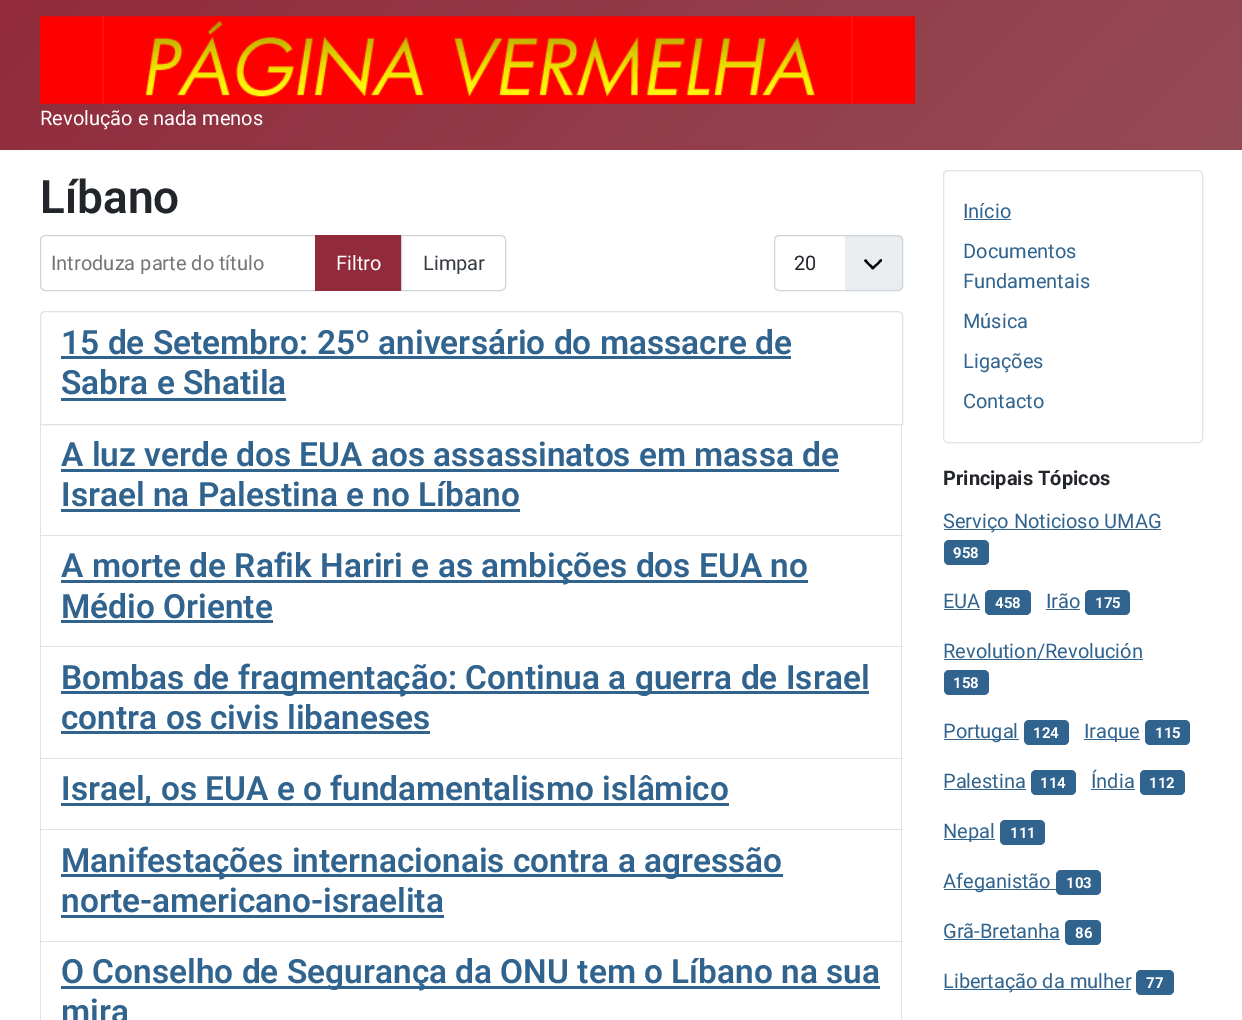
%!PS
<< /PageSize [1242 1020] >> setpagedevice
/rgb { 3 { 255 div 3 1 roll } repeat setrgbcolor } def
/font { [ exch dup neg 0 0 3 -1 roll 0 0 ] selectfont } def
/text { moveto show } def
/roundrect { 5 dict begin { /r /h /w /y /x } { exch def } forall
  x r add y moveto x w add y 2 copy h add r arct x w add y h add x 1 index r arct
  x y h add x y r arct x y 2 copy exch w add exch r arct closepath end } def
/picture { 5 dict begin { /h /w /y /x /name } { exch def } forall
  gsave x y translate w h scale
  w h 8 [w 0 0 h 0 0] name (r) file false 3 colorimage grestore end } def
0 1020 translate 1 -1 scale
4 setmiterlimit
255 255 255 rgb
0 0 1242 1020 rectfill
gsave 0 0 moveto 1242 0 rlineto 0 150 rlineto -1242 0 rlineto closepath clip newpath
<< /ShadingType 2 /ColorSpace /DeviceRGB /Coords [273 -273 969 423] /Extend [true true] /Function << /FunctionType 2 /Domain [0 1] /C0 [0.569 0.169 0.231] /C1 [0.584 0.294 0.337] /N 1 >> >> shfill grestore
(img_01.rgb) 40 16 875 88 picture
206 212 218 rgb
45 235.5 moveto 270.5 0 rlineto 0 55 rlineto -270.5 0 rlineto -2.5 0 -4.5 -2 -4.5 -4.5 rcurveto 0 -46 rlineto 0 -2.5 2 -4.5 4.5 -4.5 rcurveto closepath stroke
145 43 59 rgb
315 235 86 56 rectfill
206 212 218 rgb
401.5 235.5 moveto 99.5 0 rlineto 2.5 0 4.5 2 4.5 4.5 rcurveto 0 46 rlineto 0 2.5 -2 4.5 -4.5 4.5 rcurveto -99.5 0 rlineto closepath stroke
234 237 240 rgb
774 235 129 56 5 roundrect fill
0 0 0 rgb
864 261 moveto 7 7 rlineto 2 2 1.5 2 3.5 0 rcurveto 6 -5.5 rlineto 0 -0.5 1.5 -1 1.5 -2 rcurveto -0.5 -3.5 -4 1 -4 1.5 rcurveto -5 4.5 rlineto -5 -4.5 rlineto 0 -0.5 -2 -3.5 -3 -2.5 rcurveto closepath fill
255 255 255 rgb
779 235 moveto 66 0 rlineto 0 56 rlineto -66 0 rlineto -3 0 -5 -2 -5 -5 rcurveto 0 -46 rlineto 0 -3 2 -5 5 -5 rcurveto closepath fill
206 212 218 rgb
774.5 235.5 128 55 4.5 roundrect stroke
223 227 231 rgb
45 311.5 moveto 853 0 rlineto 2.5 0 4.5 2 4.5 4.5 rcurveto 0 108.5 rlineto -862 0 rlineto 0 -108.5 rlineto 0 -2.5 2 -4.5 4.5 -4.5 rcurveto closepath stroke
48 99 141 rgb
61 356 730 3 rectfill
61 398 225 3 rectfill
223 227 231 rgb
901 425 1 595 rectfill
40 535 863 1 rectfill
40 425 1 111 rectfill
48 99 141 rgb
61 469 778 3 rectfill
61 509 459 3 rectfill
223 227 231 rgb
40 646 863 1 rectfill
40 536 1 112 rectfill
48 99 141 rgb
61 580 747 3 rectfill
61 620 212 3 rectfill
223 227 231 rgb
40 758 863 1 rectfill
40 648 1 111 rectfill
48 99 141 rgb
61 691 808 3 rectfill
61 731 369 3 rectfill
223 227 231 rgb
40 829 863 1 rectfill
40 759 1 71 rectfill
48 99 141 rgb
61 803 668 3 rectfill
223 227 231 rgb
40 941 863 1 rectfill
40 830 1 190 rectfill
48 99 141 rgb
61 874 722 3 rectfill
61 915 383 3 rectfill
61 986 819 3 rectfill
223 227 231 rgb
943.5 170.5 259 272 4.5 roundrect stroke
48 99 141 rgb
964 219 47 1 rectfill
944 529 217 1 rectfill
944 540 45 25 5 roundrect fill
944 609 36 1 rectfill
985 590 46 25 5 roundrect fill
1046 609 34 1 rectfill
1085 590 45 25 5 roundrect fill
944 659 199 1 rectfill
944 670 45 25 5 roundrect fill
944 739 75 1 rectfill
1024 720 45 25 5 roundrect fill
1084 739 56 1 rectfill
1145 720 45 25 5 roundrect fill
944 789 82 1 rectfill
1031 770 45 25 5 roundrect fill
1091 789 44 1 rectfill
1140 770 45 25 5 roundrect fill
944 839 51 1 rectfill
1000 820 45 25 5 roundrect fill
944 889 112 1 rectfill
1056 870 45 25 5 roundrect fill
944 939 116 1 rectfill
1065 920 36 25 5 roundrect fill
944 989 187 1 rectfill
1136 970 38 25 5 roundrect fill
/Roboto-Regular 20 font
255 255 255 rgb
(Revolução e nada menos) 40 125 text
/Roboto-SemiBold 46 font
34 38 42 rgb
(Líbano) 40 213 text
/Roboto-Regular 20 font
117 117 117 rgb
(Introduza parte do título) 51 270 text
255 255 255 rgb
(Filtro) 336 270 text
53 59 65 rgb
(Limpar) 423 270 text
34 38 42 rgb
(20) 794 270 text
/Roboto-SemiBold 33.45 font
48 99 141 rgb
(15 de Setembro: 25º aniversário do massacre de) 61 354 text
(Sabra e Shatila) 61 394 text
(A luz verde dos EUA aos assassinatos em massa de) 61 466 text
(Israel na Palestina e no Líbano) 61 506 text
(A morte de Rafik Hariri e as ambições dos EUA no) 61 577 text
(Médio Oriente) 61 618 text
(Bombas de fragmentação: Continua a guerra de Israel) 61 689 text
(contra os civis libaneses) 61 729 text
(Israel, os EUA e o fundamentalismo islâmico) 61 800 text
(Manifestações internacionais contra a agressão) 61 872 text
(norte-americano-israelita) 61 912 text
(O Conselho de Segurança da ONU tem o Líbano na sua) 61 983 text
(mira) 61 1023 text
/Roboto-Regular 20 font
(Início) 963 218 text
(Documentos) 963 258 text
(Fundamentais) 963 288 text
(Música) 963 328 text
(Ligações) 963 368 text
(Contacto) 963 408 text
/Roboto-Bold 20 font
34 38 42 rgb
(Principais Tópicos) 943 485 text
/Roboto-Regular 20 font
48 99 141 rgb
(Serviço Noticioso UMAG) 943 528 text
/Roboto-Bold 15 font
255 255 255 rgb
(958) 953 558 text
/Roboto-Regular 20 font
48 99 141 rgb
(EUA) 943 608 text
/Roboto-Bold 15 font
255 255 255 rgb
(458) 995 608 text
/Roboto-Regular 20 font
48 99 141 rgb
(Irão) 1046 608 text
/Roboto-Bold 15 font
255 255 255 rgb
(175) 1095 608 text
/Roboto-Regular 20 font
48 99 141 rgb
(Revolution/Revolución) 943 658 text
/Roboto-Bold 15 font
255 255 255 rgb
(158) 953 688 text
/Roboto-Regular 20 font
48 99 141 rgb
(Portugal) 943 738 text
/Roboto-Bold 15 font
255 255 255 rgb
(124) 1033 738 text
/Roboto-Regular 20 font
48 99 141 rgb
(Iraque) 1084 738 text
/Roboto-Bold 15 font
255 255 255 rgb
(115) 1155 738 text
/Roboto-Regular 20 font
48 99 141 rgb
(Palestina) 943 788 text
/Roboto-Bold 15 font
255 255 255 rgb
(114) 1040 788 text
/Roboto-Regular 20 font
48 99 141 rgb
(Índia) 1091 788 text
/Roboto-Bold 15 font
255 255 255 rgb
(112) 1149 788 text
/Roboto-Regular 20 font
48 99 141 rgb
(Nepal) 943 838 text
/Roboto-Bold 15 font
255 255 255 rgb
(111) 1010 838 text
/Roboto-Regular 20 font
48 99 141 rgb
(Afeganistão) 943 888 text
/Roboto-Bold 15 font
255 255 255 rgb
(103) 1066 888 text
/Roboto-Regular 20 font
48 99 141 rgb
(Grã-Bretanha) 943 938 text
/Roboto-Bold 15 font
255 255 255 rgb
(86) 1075 938 text
/Roboto-Regular 20 font
48 99 141 rgb
(Libertação da mulher) 943 988 text
/Roboto-Bold 15 font
255 255 255 rgb
(77) 1146 988 text
showpage
